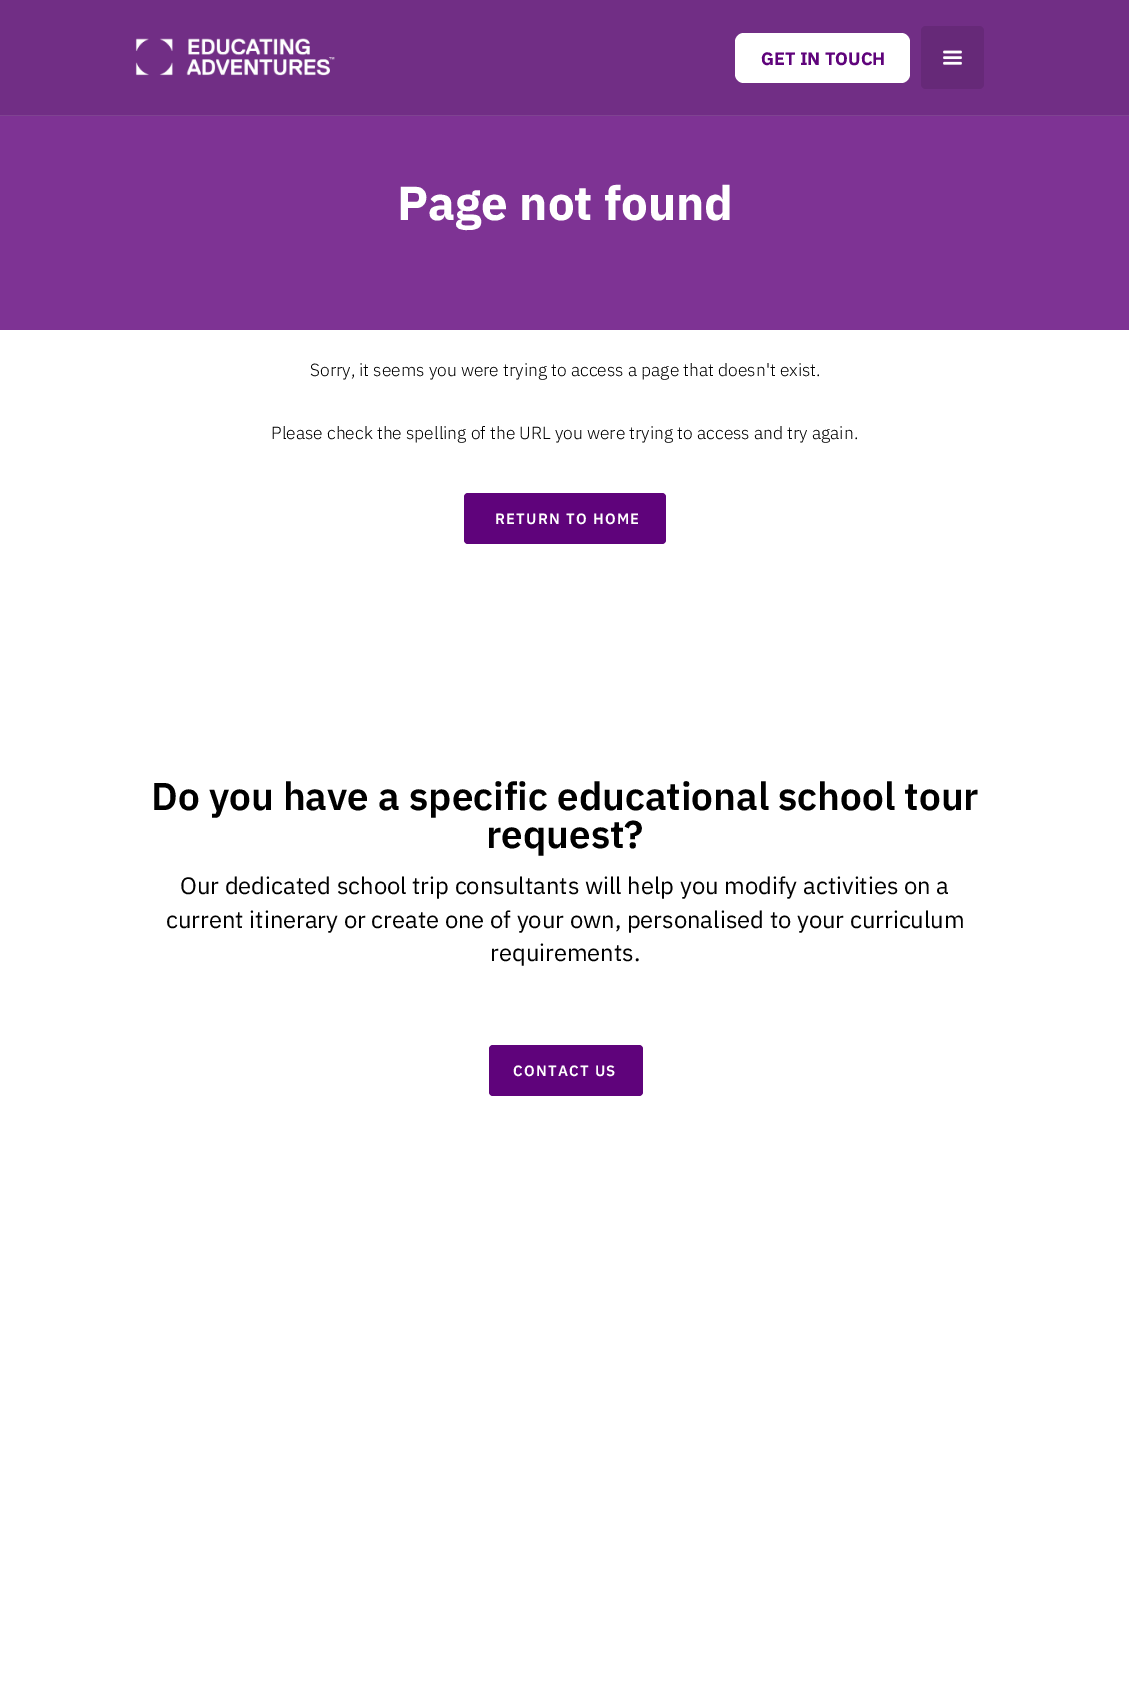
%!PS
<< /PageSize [1129 1706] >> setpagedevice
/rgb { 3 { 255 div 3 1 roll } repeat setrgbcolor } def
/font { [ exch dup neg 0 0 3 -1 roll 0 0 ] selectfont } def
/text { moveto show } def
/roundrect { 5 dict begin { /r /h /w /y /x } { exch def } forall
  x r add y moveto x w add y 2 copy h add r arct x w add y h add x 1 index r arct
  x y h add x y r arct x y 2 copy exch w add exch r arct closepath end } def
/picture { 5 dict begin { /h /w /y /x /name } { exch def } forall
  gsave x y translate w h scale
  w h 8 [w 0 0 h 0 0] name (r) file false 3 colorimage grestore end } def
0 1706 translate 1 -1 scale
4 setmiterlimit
255 255 255 rgb
0 0 1129 1706 rectfill
113 46 133 rgb
0 0 1129 115 rectfill
127 67 145 rgb
0 115 1129 1 rectfill
(img_01.rgb) 135 38 200 38 picture
255 255 255 rgb
735 33 175 50 9 roundrect fill
102 41 120 rgb
921 26 63 63 5 roundrect fill
(img_02.rgb) 943 50 19 15 picture
126 51 148 rgb
0 116 1129 214 rectfill
95 3 123 rgb
464 493 202 51 4 roundrect fill
489 1045 154 51 4 roundrect fill
/IBMPlexSans-Bold 18 font
(GET IN TOUCH) 761 65 text
/IBMPlexSans-Bold 47.5 font
255 255 255 rgb
(Page not found) 397 220 text
/IBMPlexSans-Light 17.5 font
0 0 0 rgb
(Sorry, it seems you were trying to access a page that doesn't exist.) 310 376 text
(Please check the spelling of the URL you were trying to access and try again.) 271 439 text
/IBMPlexSans-SemiBold 15 font
255 255 255 rgb
495 524 moveto 1.25 0 (RETURN TO HOME) ashow
/IBMPlexSans-SemiBold 38.75 font
0 0 0 rgb
(Do you have a specific educational school tour) 151 810 text
(request?) 486 848 text
/IBMPlexSans-Regular 23.75 font
(Our dedicated school trip consultants will help you modify activities on a) 180 894 text
(current itinerary or create one of your own, personalised to your curriculum) 166 928 text
(requirements.) 490 961 text
/IBMPlexSans-SemiBold 15 font
255 255 255 rgb
513 1076 moveto 1.25 0 (CONTACT US) ashow
showpage
